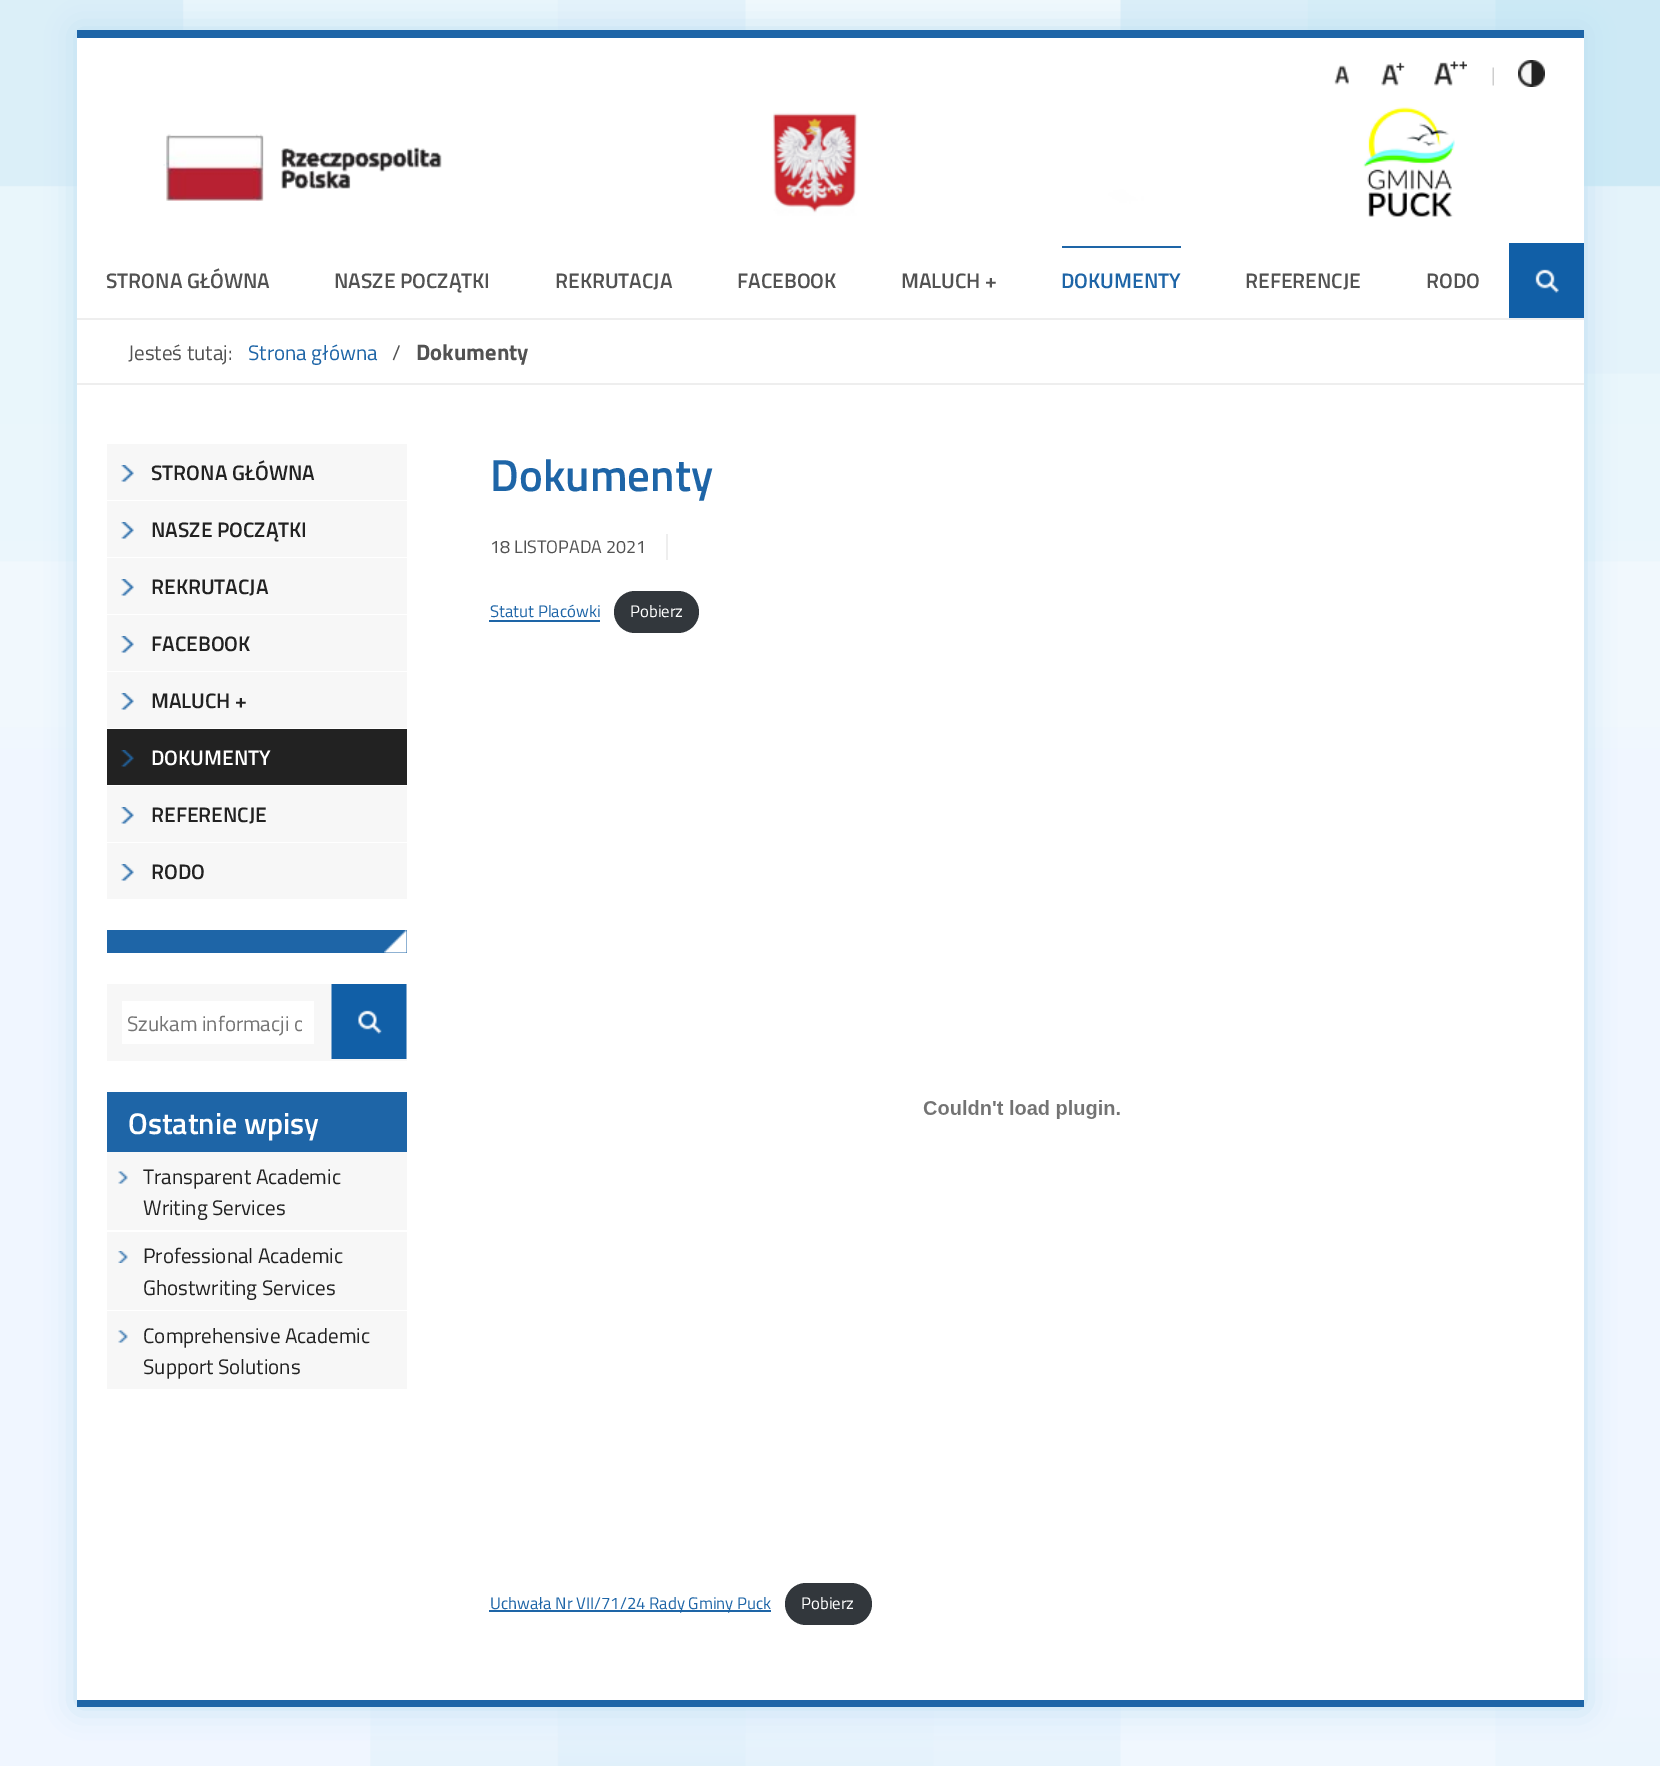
%!PS
<< /PageSize [1660 1766] /PageUsesTransparency true >> setpagedevice
/rgb { 3 { 255 div 3 1 roll } repeat setrgbcolor } def
/font { [ exch dup neg 0 0 3 -1 roll 0 0 ] selectfont } def
/text { moveto show } def
/alpha { dup .setfillconstantalpha .setstrokeconstantalpha } def
/roundrect { 5 dict begin { /r /h /w /y /x } { exch def } forall
  x r add y moveto x w add y 2 copy h add r arct x w add y h add x 1 index r arct
  x y h add x y r arct x y 2 copy exch w add exch r arct closepath end } def
/shadow { 12 dict begin { /a /b /q /h /w /y /x } { exch def } forall gsave /was 0 def
  9 -2 -9 { dup b mul 4 div /e exch def 1 sub .425 mul 2.718 exch exp 1 add a .99 .min exch div /now exch def
    1 1 now sub 1 was sub div sub alpha /was now def
    w h .min e 2 mul add 0 gt { x e sub y e sub w e 2 mul add h e 2 mul add
      q e add b .6 mul add w h .min 2 div e add .min 0 .max roundrect fill } if } for grestore end } def
/picture { 5 dict begin { /h /w /y /x /name } { exch def } forall
  gsave x y translate w h scale
  w h 8 [w 0 0 h 0 0] name (r) file false 3 colorimage grestore end } def
0 .pushpdf14devicefilter
0 1766 translate 1 -1 scale
4 setmiterlimit
240 246 255 rgb
0 0 1660 1766 rectfill
(img_01.rgb) 0 0 1660 749 picture
(img_16.rgb) 370 1658 1290 108 picture
189 223 241 rgb
77 30 1507 1677 0 15 1 shadow
255 255 255 rgb
77 38 1507 1662 rectfill
30 101 167 rgb
77 30 1507 8 rectfill
77 1700 1507 7 rectfill
(img_02.rgb) 1334 65 15 20 picture
(img_03.rgb) 1381 62 24 24 picture
(img_04.rgb) 1434 61 33 25 picture
(img_05.rgb) 1492 67 2 19 picture
(img_06.rgb) 1518 60 27 27 picture
(img_07.rgb) 163 107 1292 110 picture
1062 246 119 2 rectfill
(img_08.rgb) 1509 243 75 75 picture
238 238 238 rgb
77 318 1507 2 rectfill
77 383 1507 2 rectfill
247 247 247 rgb
107 444 300 56 rectfill
(img_09.rgb) 121 465 13 17 picture
107 501 300 56 rectfill
(img_09.rgb) 121 522 13 17 picture
107 558 300 56 rectfill
(img_09.rgb) 121 579 13 17 picture
107 615 300 56 rectfill
(img_09.rgb) 121 636 13 17 picture
107 672 300 56 rectfill
(img_09.rgb) 121 693 13 17 picture
34 34 34 rgb
107 729 300 56 rectfill
(img_10.rgb) 121 750 13 17 picture
247 247 247 rgb
107 786 300 56 rectfill
(img_09.rgb) 121 807 13 17 picture
107 843 300 56 rectfill
(img_09.rgb) 121 864 13 17 picture
30 101 167 rgb
107 930 300 23 rectfill
(img_11.rgb) 384 930 23 23 picture
247 247 247 rgb
107 984 300 77 rectfill
255 255 255 rgb
122 1001 192 43 rectfill
(img_12.rgb) 331 984 76 75 picture
30 101 167 rgb
107 1092 300 60 rectfill
247 247 247 rgb
107 1152 300 78 rectfill
(img_13.rgb) 118 1171 10 13 picture
107 1232 300 78 rectfill
(img_14.rgb) 118 1251 10 12 picture
107 1311 300 78 rectfill
(img_13.rgb) 118 1330 10 13 picture
238 238 238 rgb
666 534 2 26 rectfill
30 101 167 rgb
489 620 111 2 rectfill
50 55 60 rgb
614 591 85 42 21 roundrect fill
(img_15.rgb) 923 1100 197 19 picture
30 101 167 rgb
489 1610 282 2 rectfill
50 55 60 rgb
785 1583 87 42 21 roundrect fill
/TitilliumWeb-SemiBold 21 font
82 82 82 rgb
(STRONA GŁÓWNA) 106 288 text
(NASZE POCZĄTKI) 334 288 text
(REKRUTACJA) 555 288 text
(FACEBOOK) 737 288 text
(MALUCH +) 901 288 text
30 101 167 rgb
(DOKUMENTY) 1061 288 text
82 82 82 rgb
(REFERENCJE) 1245 288 text
(RODO) 1426 288 text
/TitilliumWeb-Regular 21 font
(Jesteś tutaj:) 128 360 text
30 101 167 rgb
(Strona główna) 248 360 text
82 82 82 rgb
(/) 392 360 text
/TitilliumWeb-Bold 22.5 font
(Dokumenty) 416 360 text
/TitilliumWeb-SemiBold 21 font
34 34 34 rgb
(STRONA GŁÓWNA) 151 480 text
(NASZE POCZĄTKI) 151 537 text
(REKRUTACJA) 151 594 text
(FACEBOOK) 151 651 text
(MALUCH +) 151 708 text
255 255 255 rgb
(DOKUMENTY) 151 765 text
34 34 34 rgb
(REFERENCJE) 151 822 text
(RODO) 151 879 text
gsave
128 1008 174 29 rectclip
/TitilliumWeb-Regular 21 font
117 117 117 rgb
(Szukam informacji o) 127 1031 text
grestore
/TitilliumWeb-SemiBold 30 font
255 255 255 rgb
(Ostatnie wpisy) 128 1134 text
/TitilliumWeb-Regular 21 font
34 34 34 rgb
(Transparent Academic) 143 1184 text
(Writing Services) 143 1215 text
(Professional Academic) 143 1263 text
(Ghostwriting Services) 143 1295 text
(Comprehensive Academic) 143 1343 text
(Support Solutions) 143 1374 text
/TitilliumWeb-SemiBold 45 font
30 101 167 rgb
(Dokumenty) 490 491 text
/TitilliumWeb-Regular 18 font
82 82 82 rgb
(18 LISTOPADA 2021) 490 553 text
/TitilliumWeb-Regular 16.75 font
30 101 167 rgb
(Statut Placówki) 490 617 text
255 255 255 rgb
(Pobierz) 630 617 text
30 101 167 rgb
(Uchwała Nr VII/71/24 Rady Gminy Puck) 490 1609 text
255 255 255 rgb
(Pobierz) 801 1609 text
.poppdf14devicefilter showpage
